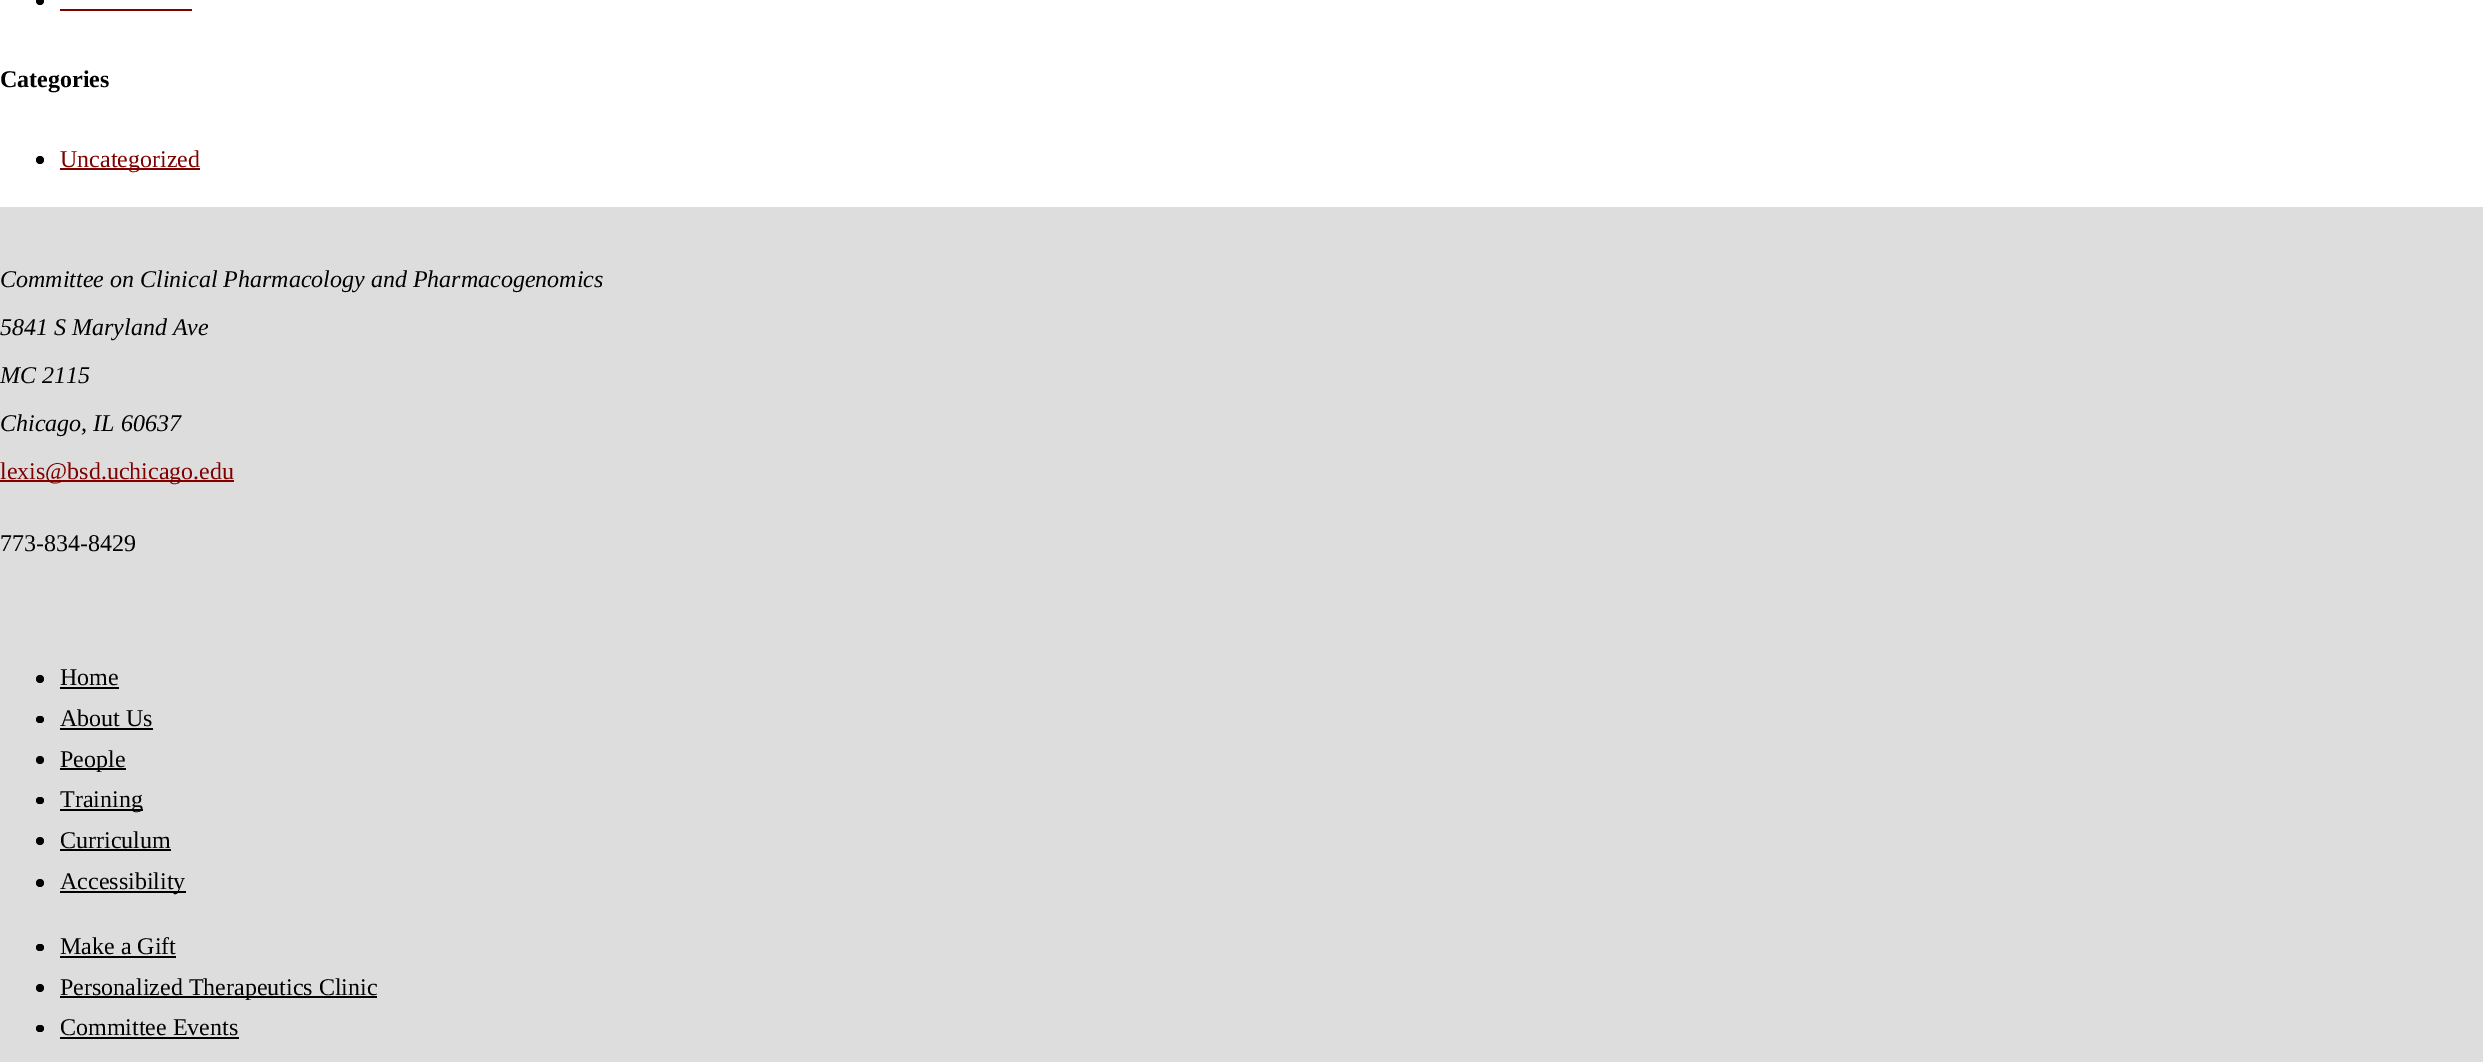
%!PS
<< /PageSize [2483 1062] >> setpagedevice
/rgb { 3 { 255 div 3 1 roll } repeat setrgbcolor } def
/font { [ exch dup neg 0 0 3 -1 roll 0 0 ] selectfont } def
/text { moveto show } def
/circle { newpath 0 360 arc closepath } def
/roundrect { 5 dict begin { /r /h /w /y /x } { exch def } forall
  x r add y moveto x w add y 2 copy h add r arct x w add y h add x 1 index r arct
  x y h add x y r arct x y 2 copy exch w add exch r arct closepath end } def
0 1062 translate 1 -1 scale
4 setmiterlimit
255 255 255 rgb
0 0 2483 1062 rectfill
0 0 0 rgb
40 1 4 circle fill
128 0 0 rgb
60 9 132 2 rectfill
0 0 0 rgb
40 160 4 circle fill
128 0 0 rgb
60 168 140 2 rectfill
221 221 221 rgb
0 207 2483 855 rectfill
128 0 0 rgb
0 480 234 2 rectfill
0 0 0 rgb
40 679 4 circle fill
60 687 59 2 rectfill
36 716 8 7 3.5 roundrect fill
60 728 93 2 rectfill
40 760 4 circle fill
60 768 66 2 rectfill
36 797 8 7 3.5 roundrect fill
60 809 83 2 rectfill
40 841 4 circle fill
60 849 111 2 rectfill
40 883 4 circle fill
60 891 126 2 rectfill
36 944 8 7 3.5 roundrect fill
60 956 116 2 rectfill
40 988 4 circle fill
60 996 317 2 rectfill
36 1025 8 7 3.5 roundrect fill
60 1037 179 2 rectfill
/LiberationSerif-Bold 24 font
(Categories) 0 87 text
/LiberationSerif-Regular 24 font
128 0 0 rgb
(Uncategorized) 60 167 text
/LiberationSerif-Italic 24 font
0 0 0 rgb
(Committee on Clinical Pharmacology and Pharmacogenomics) 0 287 text
(5841 S Maryland Ave) 0 335 text
(MC 2115) 0 383 text
(Chicago, IL 60637) 0 431 text
/LiberationSerif-Regular 24 font
128 0 0 rgb
(lexis@bsd.uchicago.edu) 0 479 text
0 0 0 rgb
(773-834-8429) 0 551 text
(Home) 60 685 text
(About Us) 60 726 text
(People) 60 767 text
(Training) 60 807 text
(Curriculum) 60 848 text
(Accessibility) 60 889 text
(Make a Gift) 60 954 text
(Personalized Therapeutics Clinic) 60 995 text
(Committee Events) 60 1035 text
showpage
